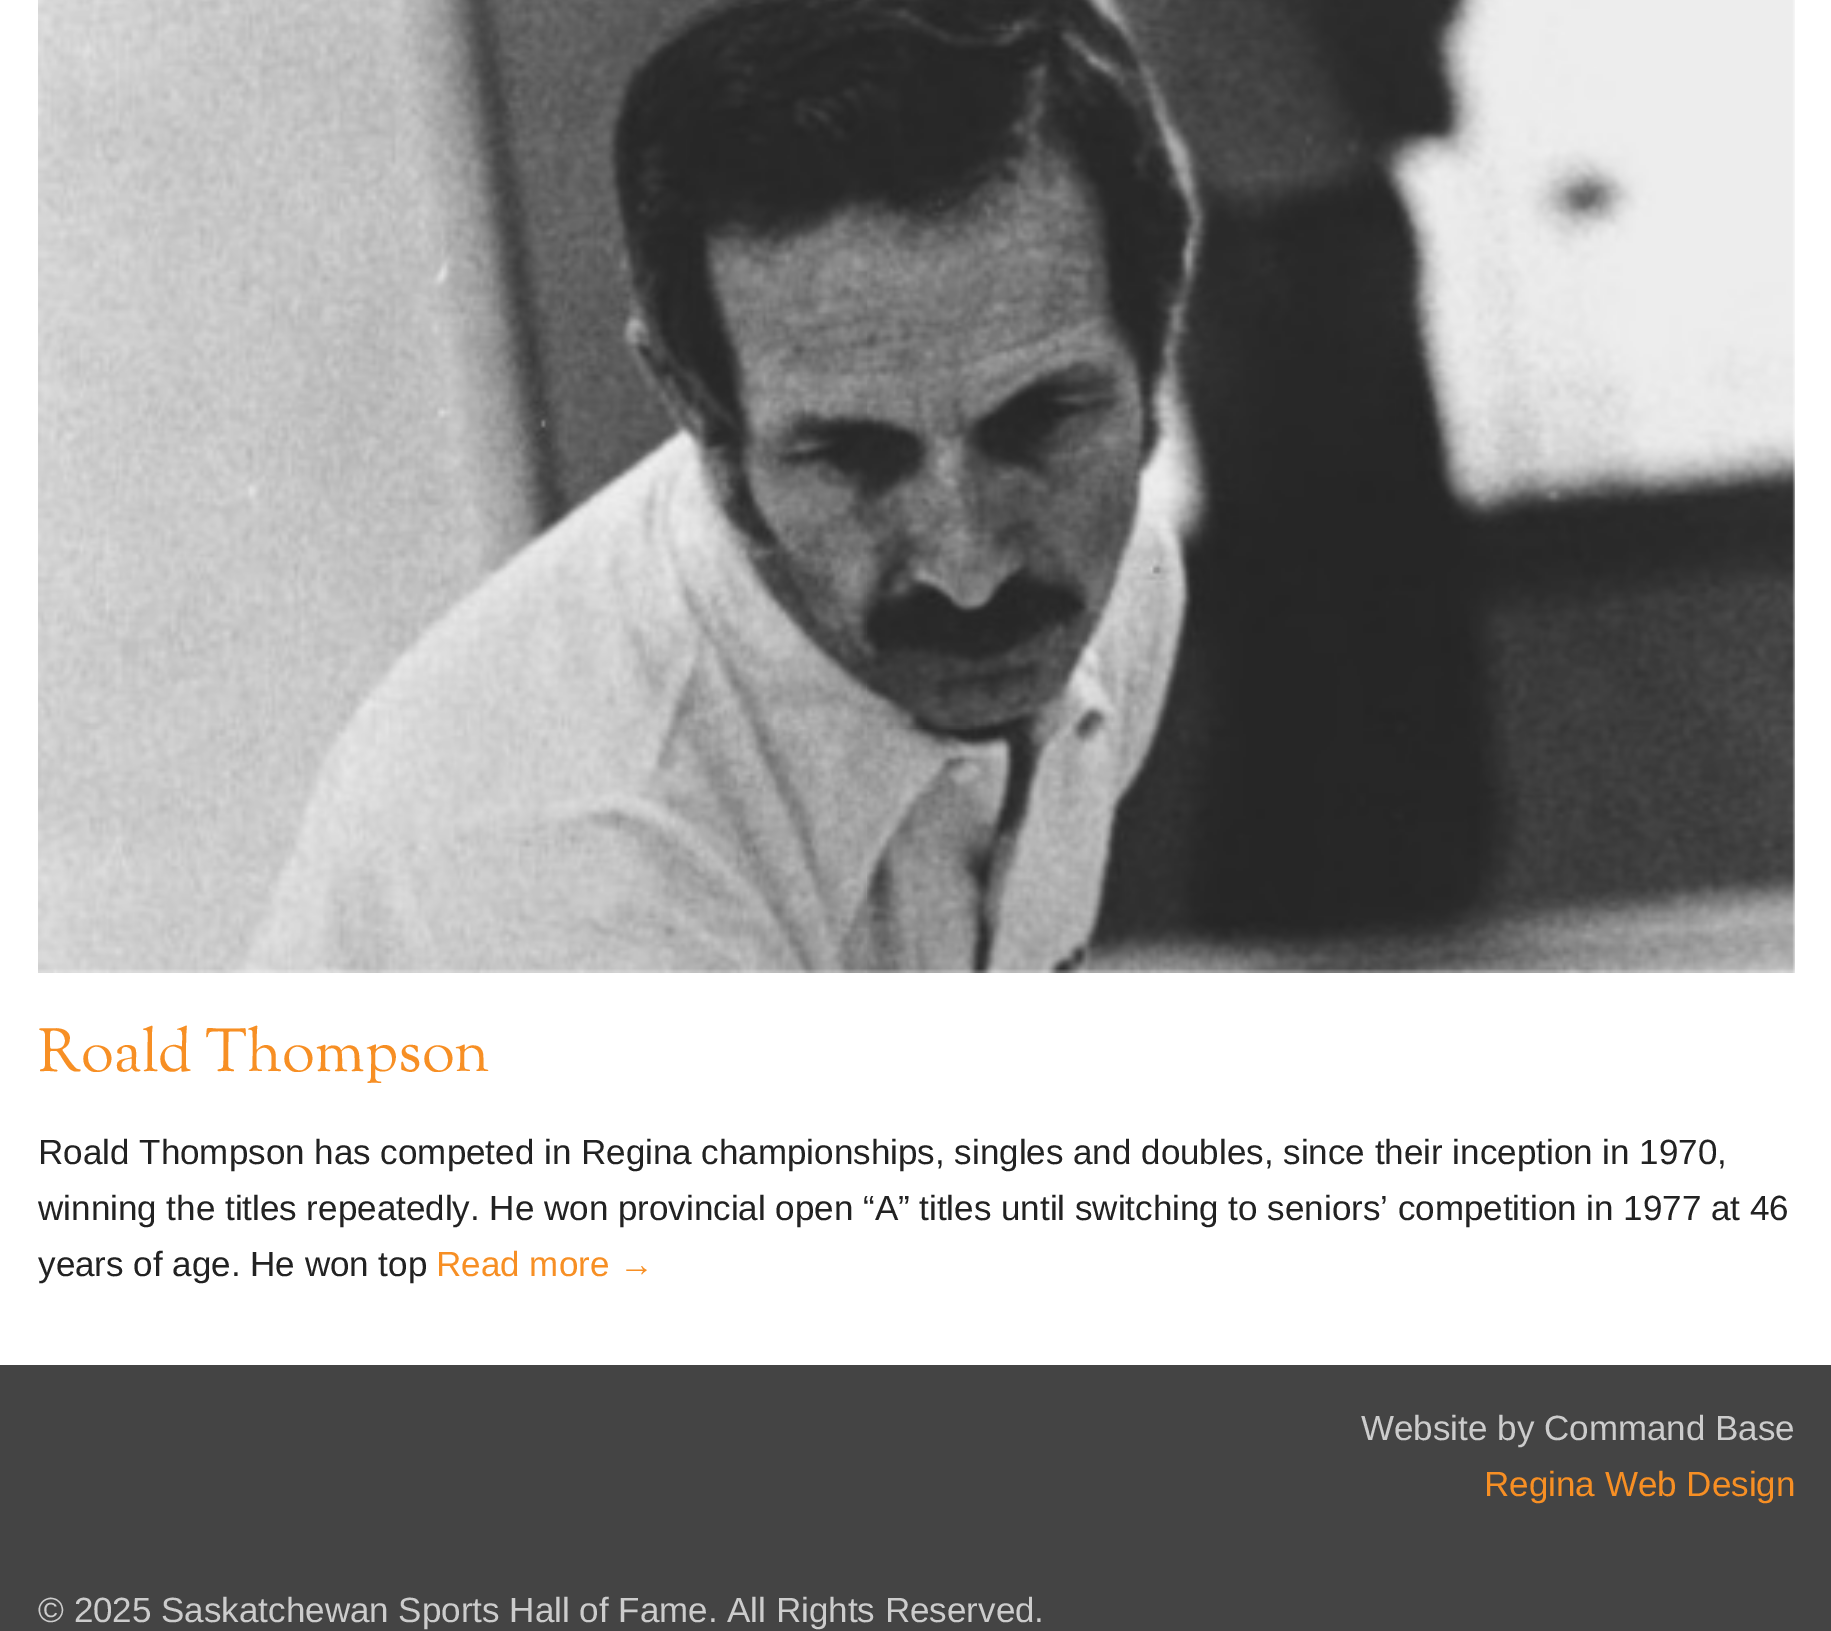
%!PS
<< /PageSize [1831 1631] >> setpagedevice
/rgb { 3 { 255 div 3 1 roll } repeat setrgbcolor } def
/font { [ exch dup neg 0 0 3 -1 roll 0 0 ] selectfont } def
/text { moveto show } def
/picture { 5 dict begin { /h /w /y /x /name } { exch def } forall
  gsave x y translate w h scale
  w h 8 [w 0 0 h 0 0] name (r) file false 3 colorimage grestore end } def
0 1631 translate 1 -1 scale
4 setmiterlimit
255 255 255 rgb
0 0 1831 1631 rectfill
(img_01.rgb) 38 0 1757 973 picture
68 68 68 rgb
0 1365 1831 266 rectfill
/SortsMillGoudy-Regular 60 font
247 143 36 rgb
(Roald Thompson) 38 1071 text
/LiberationSans-Regular 35 font
34 34 34 rgb
(Roald Thompson has competed in Regina championships, singles and doubles, since their inception in 1970,) 38 1164 text
(winning the titles repeatedly. He won provincial open “A” titles until switching to seniors’ competition in 1977 at 46) 38 1220 text
(years of age. He won top) 38 1276 text
247 143 36 rgb
(Read more →) 436 1276 text
204 204 204 rgb
(Website by Command Base) 1361 1440 text
247 143 36 rgb
(Regina Web Design) 1484 1496 text
204 204 204 rgb
(© 2025 Saskatchewan Sports Hall of Fame. All Rights Reserved.) 38 1622 text
showpage
